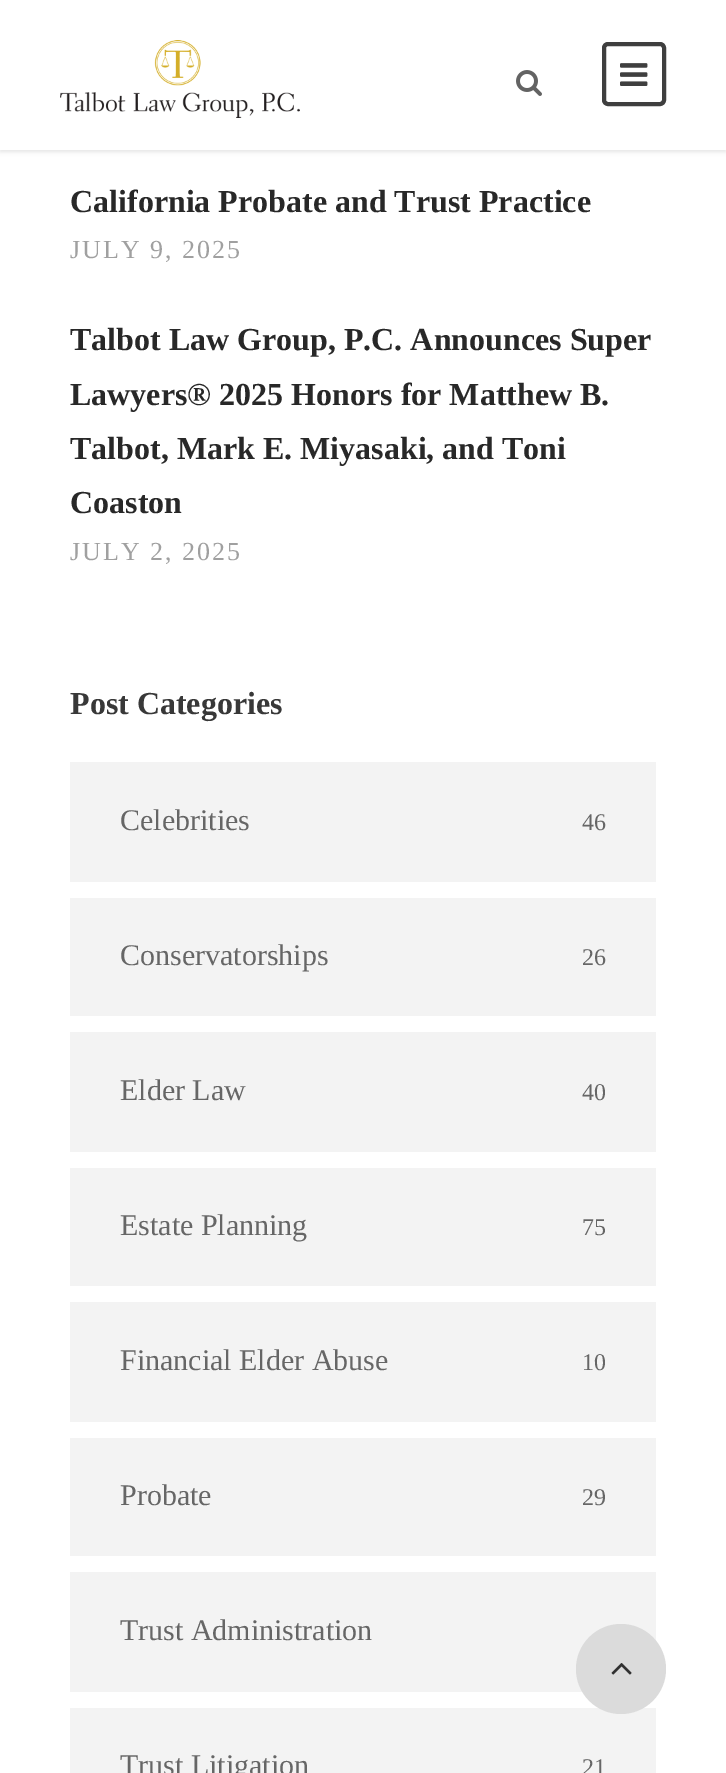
%!PS
<< /PageSize [726 1773] /PageUsesTransparency true >> setpagedevice
/rgb { 3 { 255 div 3 1 roll } repeat setrgbcolor } def
/font { [ exch dup neg 0 0 3 -1 roll 0 0 ] selectfont } def
/text { moveto show } def
/alpha { dup .setfillconstantalpha .setstrokeconstantalpha } def
/circle { newpath 0 360 arc closepath } def
/roundrect { 5 dict begin { /r /h /w /y /x } { exch def } forall
  x r add y moveto x w add y 2 copy h add r arct x w add y h add x 1 index r arct
  x y h add x y r arct x y 2 copy exch w add exch r arct closepath end } def
/shadow { 12 dict begin { /a /b /q /h /w /y /x } { exch def } forall gsave /was 0 def
  9 -2 -9 { dup b mul 4 div /e exch def 1 sub .425 mul 2.718 exch exp 1 add a .99 .min exch div /now exch def
    1 1 now sub 1 was sub div sub alpha /was now def
    w h .min e 2 mul add 0 gt { x e sub y e sub w e 2 mul add h e 2 mul add
      q e add b .6 mul add w h .min 2 div e add .min 0 .max roundrect fill } if } for grestore end } def
/picture { 5 dict begin { /h /w /y /x /name } { exch def } forall
  gsave x y translate w h scale
  w h 8 [w 0 0 h 0 0] name (r) file false 3 colorimage grestore end } def
0 .pushpdf14devicefilter
0 1773 translate 1 -1 scale
4 setmiterlimit
255 255 255 rgb
0 0 726 1773 rectfill
0 0 0 rgb
0 2 726 150 0 2 0.1 shadow
255 255 255 rgb
0 0 726 150 rectfill
(img_01.rgb) 60 40 240 78 picture
(img_02.rgb) 516 70 26 26 picture
63 63 63 rgb
4 setlinewidth
604 44 60 60 4 roundrect stroke
(img_03.rgb) 620 63 28 23 picture
243 243 243 rgb
70 762 586 120 rectfill
70 898 586 118 rectfill
70 1032 586 120 rectfill
70 1168 586 118 rectfill
70 1302 586 120 rectfill
70 1438 586 118 rectfill
70 1572 586 120 rectfill
70 1708 586 65 rectfill
219 219 219 rgb
621 1669 45 circle fill
(img_04.rgb) 611 1663 21 12 picture
/LiberationSerif-Bold 32 font
40 40 40 rgb
(California Probate and Trust Practice) 70 212 text
/LiberationSerif-Regular 26 font
160 160 160 rgb
70 258 moveto 2 0 (JULY 9, 2025) ashow
/LiberationSerif-Bold 32 font
40 40 40 rgb
(Talbot Law Group, P.C. Announces Super) 70 350 text
(Lawyers® 2025 Honors for Matthew B.) 70 405 text
(Talbot, Mark E. Miyasaki, and Toni) 70 459 text
(Coaston) 70 513 text
/LiberationSerif-Regular 26 font
160 160 160 rgb
70 560 moveto 2 0 (JULY 2, 2025) ashow
/LiberationSerif-Bold 32 font
56 56 56 rgb
(Post Categories) 70 714 text
/LiberationSerif-Regular 30 font
102 102 102 rgb
(Celebrities) 120 830 text
/LiberationSerif-Regular 24 font
(46) 582 830 text
/LiberationSerif-Regular 30 font
(Conservatorships) 120 965 text
/LiberationSerif-Regular 24 font
(26) 582 965 text
/LiberationSerif-Regular 30 font
(Elder Law) 120 1100 text
/LiberationSerif-Regular 24 font
(40) 582 1100 text
/LiberationSerif-Regular 30 font
(Estate Planning) 120 1235 text
/LiberationSerif-Regular 24 font
(75) 582 1235 text
/LiberationSerif-Regular 30 font
(Financial Elder Abuse) 120 1370 text
/LiberationSerif-Regular 24 font
(10) 582 1370 text
/LiberationSerif-Regular 30 font
(Probate) 120 1505 text
/LiberationSerif-Regular 24 font
(29) 582 1505 text
/LiberationSerif-Regular 30 font
(Trust Administration) 120 1640 text
(Trust Litigation) 120 1775 text
/LiberationSerif-Regular 24 font
(21) 582 1775 text
.poppdf14devicefilter showpage
